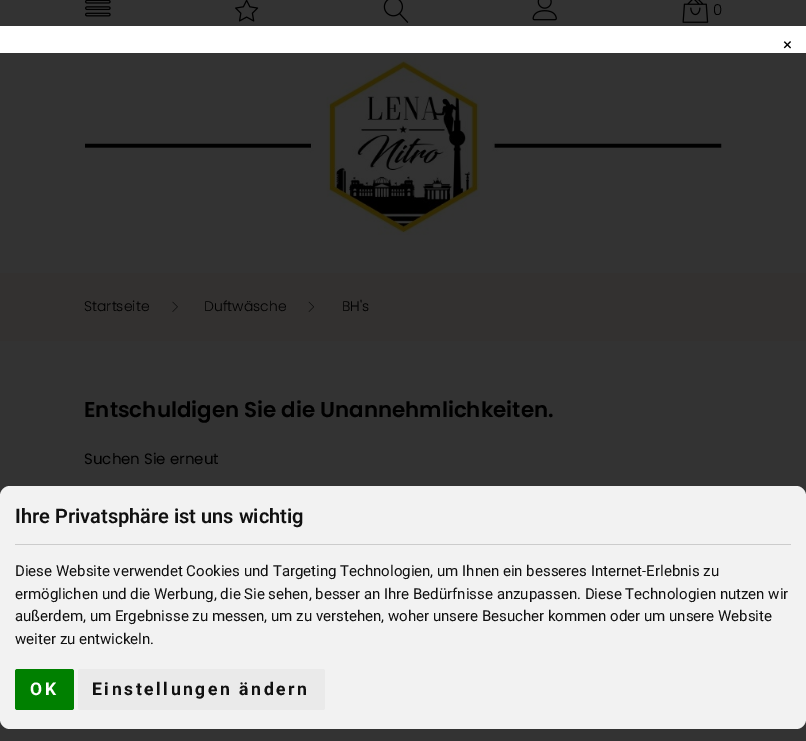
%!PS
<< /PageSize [806 741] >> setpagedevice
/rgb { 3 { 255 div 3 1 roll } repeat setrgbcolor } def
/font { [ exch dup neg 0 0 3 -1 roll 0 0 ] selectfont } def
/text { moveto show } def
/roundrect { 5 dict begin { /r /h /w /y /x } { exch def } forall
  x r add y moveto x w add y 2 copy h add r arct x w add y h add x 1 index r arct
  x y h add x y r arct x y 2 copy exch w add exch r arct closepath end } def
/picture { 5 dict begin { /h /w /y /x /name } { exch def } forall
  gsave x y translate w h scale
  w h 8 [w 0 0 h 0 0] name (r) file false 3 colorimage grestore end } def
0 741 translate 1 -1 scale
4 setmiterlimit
51 51 51 rgb
0 0 806 741 rectfill
(img_01.rgb) 85 0 26 17 picture
(img_02.rgb) 235 0 24 22 picture
(img_03.rgb) 383 0 26 23 picture
(img_04.rgb) 532 0 25 21 picture
(img_05.rgb) 682 0 27 23 picture
(img_06.rgb) 85 57 637 178 picture
51 49 48 rgb
0 273 806 68 rectfill
(img_07.rgb) 172 301 6 11 picture
(img_08.rgb) 308 301 6 11 picture
255 255 255 rgb
0 26 806 27 rectfill
242 242 242 rgb
0 486 806 243 10 roundrect fill
204 204 204 rgb
15 544 776 1 rectfill
0 128 0 rgb
15 669 59 41 2.5 roundrect fill
234 234 234 rgb
78 669 247 41 2.5 roundrect fill
/Poppins-Light 15 font
0 0 0 rgb
(0) 713 15 text
/Poppins-Light 14 font
(Startseite) 84 311 text
(Duftwäsche) 204 311 text
(BH's) 342 311 text
/Poppins-SemiBold 21.4 font
(Entschuldigen Sie die Unannehmlichkeiten.) 84 417 text
/Poppins-Regular 15 font
(Suchen Sie erneut) 84 464 text
/Poppins-Regular 17 font
782 51 moveto 3 0 (×) ashow
/Roboto-SemiBold 20 font
17 17 17 rgb
(Ihre Privatsphäre ist uns wichtig) 15 523 text
/Roboto-Regular 15 font
(Diese Website verwendet Cookies und Targeting Technologien, um Ihnen ein besseres Internet-Erlebnis zu) 15 576 text
(ermöglichen und die Werbung, die Sie sehen, besser an Ihre Bedürfnisse anzupassen. Diese Technologien nutzen wir) 15 599 text
(außerdem, um Ergebnisse zu messen, um zu verstehen, woher unsere Besucher kommen oder um unsere Website) 15 621 text
(weiter zu entwickeln.) 15 644 text
/Roboto-Bold 17.5 font
255 255 255 rgb
30 695 moveto 2.6 0 (OK) ashow
17 17 17 rgb
92 695 moveto 2.6 0 (Einstellungen ändern) ashow
showpage
